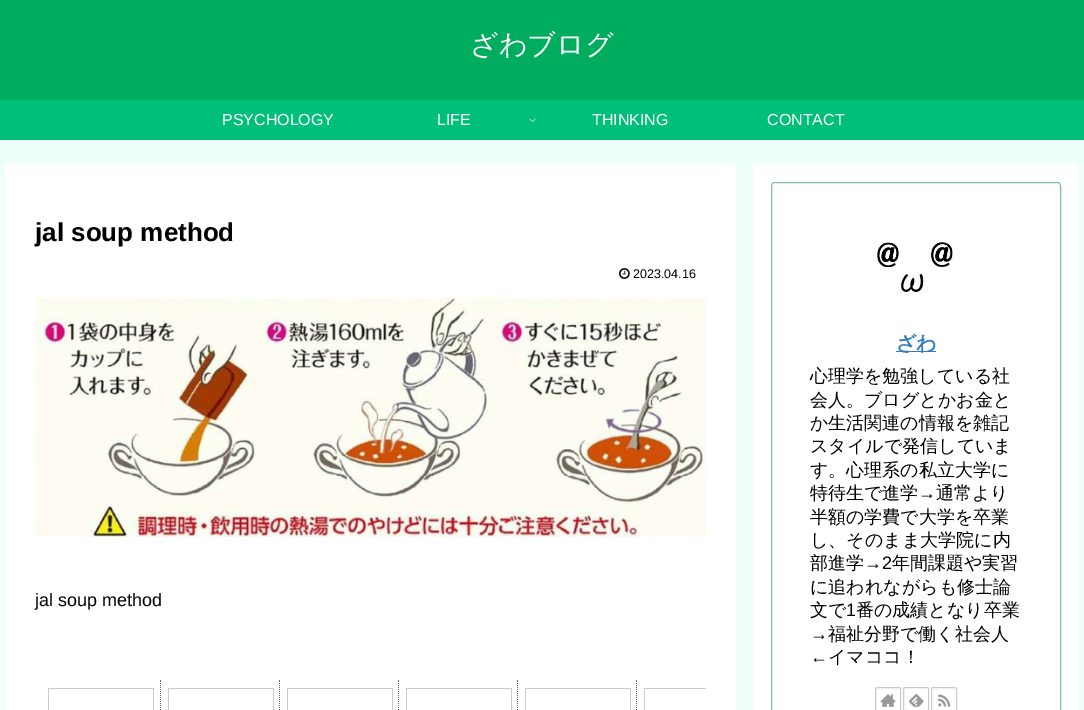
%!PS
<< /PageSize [1084 710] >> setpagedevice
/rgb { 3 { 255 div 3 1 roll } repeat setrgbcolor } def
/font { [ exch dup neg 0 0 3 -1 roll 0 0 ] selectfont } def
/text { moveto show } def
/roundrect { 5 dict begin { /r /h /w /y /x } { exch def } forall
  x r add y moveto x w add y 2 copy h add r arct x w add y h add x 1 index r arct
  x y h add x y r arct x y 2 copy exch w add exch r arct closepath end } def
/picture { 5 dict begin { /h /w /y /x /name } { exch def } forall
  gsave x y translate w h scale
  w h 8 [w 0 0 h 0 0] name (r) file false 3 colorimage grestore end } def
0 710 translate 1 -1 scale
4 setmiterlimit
237 255 248 rgb
0 0 1084 710 rectfill
0 173 95 rgb
0 0 1084 100 rectfill
0 191 121 rgb
0 100 1084 40 rectfill
(img_01.rgb) 529 118 7 5 picture
255 255 255 rgb
5 164 731 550 4 roundrect fill
(img_02.rgb) 619 268 11 11 picture
(img_03.rgb) 35 298 671 239 picture
(img_04.rgb) 48 680 658 30 picture
753 164 326 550 4 roundrect fill
128 194 165 rgb
771.5 182.5 289 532 3.5 roundrect stroke
(img_05.rgb) 877 242 76 51 picture
51 123 191 rgb
896 351 40 1 rectfill
204 204 204 rgb
875.5 687.5 25 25 1.5 roundrect stroke
(img_06.rgb) 880 694 16 13 picture
903.5 687.5 25 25 1.5 roundrect stroke
(img_07.rgb) 909 694 15 13 picture
931.5 687.5 25 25 1.5 roundrect stroke
(img_08.rgb) 938 694 13 13 picture
/WenQuanYiZenHei-Medium 28 font
255 255 255 rgb
(ざわブログ) 470 54 text
/LiberationSans-Regular 16 font
(PSYCHOLOGY) 222 125 text
(LIFE) 437 125 text
(THINKING) 592 125 text
(CONTACT) 767 125 text
/LiberationSans-Bold 26 font
0 0 0 rgb
(jal soup method) 35 241 text
/LiberationSans-Regular 12.5 font
(2023.04.16) 633 278 text
/LiberationSans-Regular 18 font
(jal soup method) 35 606 text
/WenQuanYiZenHei-Bold 20 font
51 123 191 rgb
(ざわ) 896 350 text
/WenQuanYiZenHei-Medium 18 font
0 0 0 rgb
(心理学を勉強している社) 810 382 text
(会人。ブログとかお金と) 810 406 text
(か生活関連の情報を雑記) 810 429 text
(スタイルで発信していま) 810 452 text
(す。心理系の私立大学に) 810 476 text
(特待生で進学) 810 499 text
/LiberationSans-Regular 18 font
(→) 918 499 text
/WenQuanYiZenHei-Medium 18 font
(通常より) 936 499 text
(半額の学費で大学を卒業) 810 523 text
(し、そのまま大学院に内) 810 546 text
(部進学) 810 569 text
/LiberationSans-Regular 18 font
(→2) 864 569 text
/WenQuanYiZenHei-Medium 18 font
(年間課題や実習) 892 569 text
(に追われながらも修士論) 810 593 text
(文で) 810 616 text
/LiberationSans-Regular 18 font
(1) 846 616 text
/WenQuanYiZenHei-Medium 18 font
(番の成績となり卒業) 856 616 text
/LiberationSans-Regular 18 font
(→) 810 640 text
/WenQuanYiZenHei-Medium 18 font
(福祉分野で働く社会人) 828 640 text
/LiberationSans-Regular 18 font
(←) 810 663 text
/WenQuanYiZenHei-Medium 18 font
(イマココ！) 828 663 text
showpage
